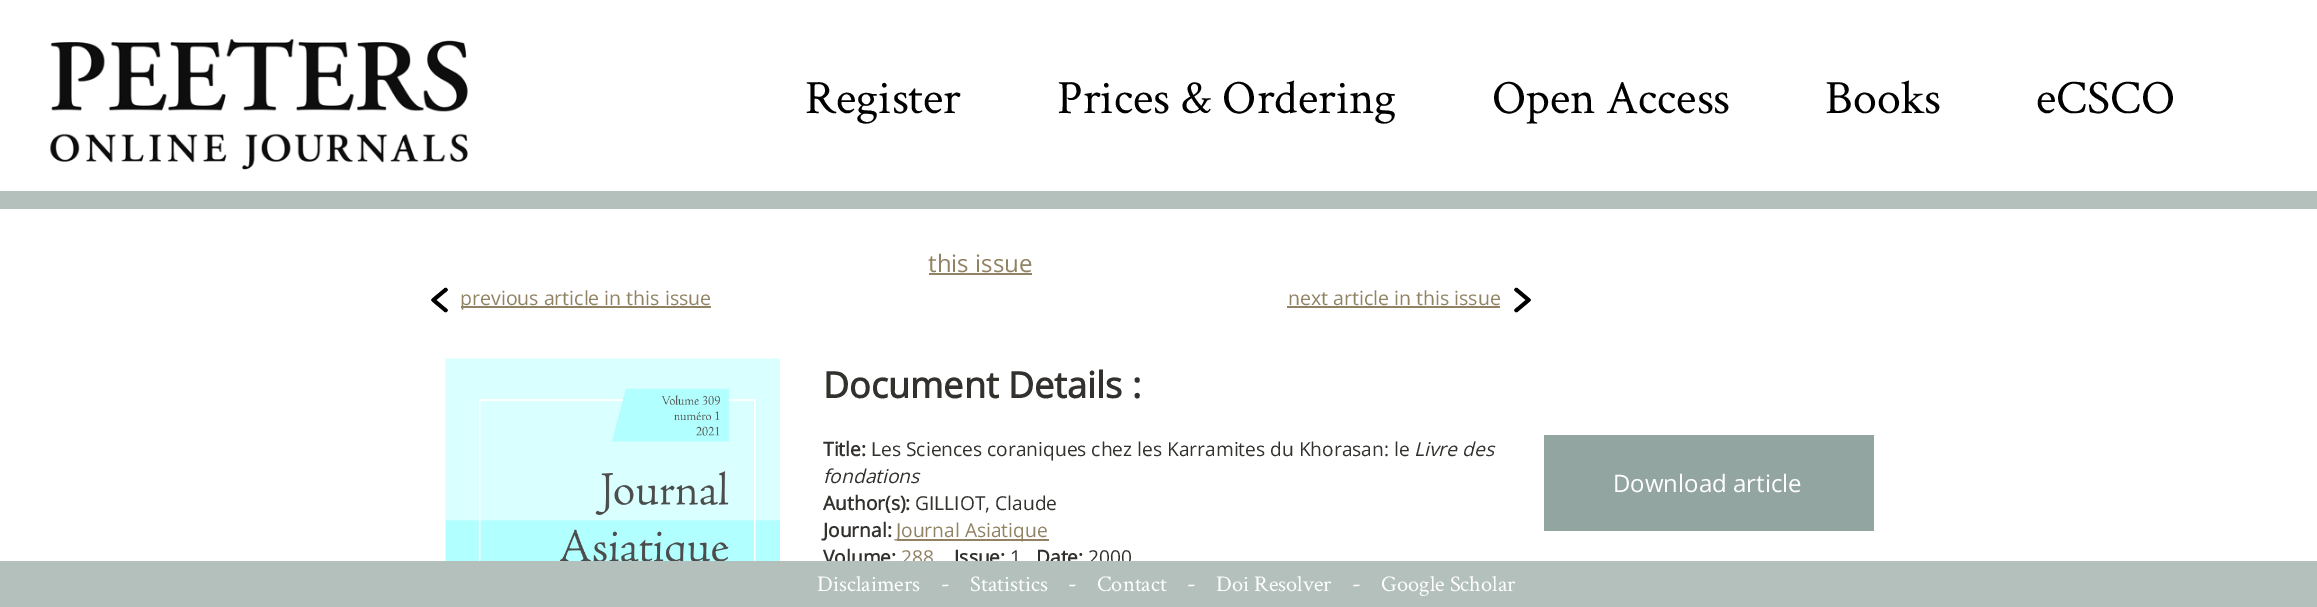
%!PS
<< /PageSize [2317 607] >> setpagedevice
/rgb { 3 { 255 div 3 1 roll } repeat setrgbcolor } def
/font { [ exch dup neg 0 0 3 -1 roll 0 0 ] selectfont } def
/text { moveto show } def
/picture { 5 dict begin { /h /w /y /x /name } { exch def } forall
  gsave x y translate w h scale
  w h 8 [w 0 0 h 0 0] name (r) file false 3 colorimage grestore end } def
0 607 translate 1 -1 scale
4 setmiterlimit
255 255 255 rgb
0 0 2317 607 rectfill
(img_01.rgb) 49 38 419 132 picture
179 192 188 rgb
0 191 2317 18 rectfill
144 130 99 rgb
929 273 103 2 rectfill
(img_02.rgb) 431 287 17 26 picture
461 306 250 2 rectfill
1287 306 213 2 rectfill
(img_03.rgb) 1514 287 17 26 picture
(img_04.rgb) 445 358 335 203 picture
897 539 152 2 rectfill
147 165 160 rgb
1544 435 330 96 rectfill
/CrimsonText-Regular 48 font
0 0 0 rgb
(Register) 805 113 text
(Prices & Ordering) 1057 113 text
(Open Access) 1492 113 text
(Books) 1825 113 text
(eCSCO) 2036 113 text
/OpenSans-Regular 24 font
144 130 99 rgb
(this issue) 928 272 text
/OpenSans-Regular 19.5 font
(previous article in this issue) 460 305 text
(next article in this issue) 1288 305 text
/OpenSans-Bold 36 font
50 49 46 rgb
(Document Details :) 823 398 text
/OpenSans-Bold 19.2 font
(Title:) 823 456 text
/OpenSans-Regular 19.2 font
(Les Sciences coraniques chez les Karramites du Khorasan: le) 871 456 text
/OpenSans-Italic 19.2 font
(Livre des) 1414 456 text
(fondations) 823 483 text
/OpenSans-Bold 19.2 font
(Author\(s\):) 823 510 text
/OpenSans-Regular 19.2 font
(GILLIOT, Claude) 915 510 text
/OpenSans-Bold 19.2 font
(Journal:) 823 537 text
/OpenSans-Regular 19.2 font
144 130 99 rgb
(Journal Asiatique) 896 537 text
/OpenSans-Bold 19.2 font
50 49 46 rgb
(Volume:) 823 564 text
/OpenSans-Regular 19.2 font
144 130 99 rgb
(288) 901 564 text
/OpenSans-Bold 19.2 font
50 49 46 rgb
(Issue:) 954 564 text
/OpenSans-Regular 19.2 font
(1) 1010 564 text
/OpenSans-Bold 19.2 font
(Date:) 1036 564 text
/OpenSans-Regular 19.2 font
(2000) 1088 564 text
/OpenSans-Regular 24 font
255 255 255 rgb
(Download article) 1613 492 text
179 192 188 rgb
0 561 2317 46 rectfill
/CrimsonText-Regular 22.5 font
255 255 255 rgb
(Disclaimers) 817 591 text
/CrimsonText-Regular 24 font
(-) 941 591 text
/CrimsonText-Regular 22.5 font
(Statistics) 970 591 text
/CrimsonText-Regular 24 font
(-) 1068 591 text
/CrimsonText-Regular 22.5 font
(Contact) 1097 591 text
/CrimsonText-Regular 24 font
(-) 1187 591 text
/CrimsonText-Regular 22.5 font
(Doi Resolver) 1216 591 text
/CrimsonText-Regular 24 font
(-) 1352 591 text
/CrimsonText-Regular 22.5 font
(Google Scholar) 1381 591 text
showpage
